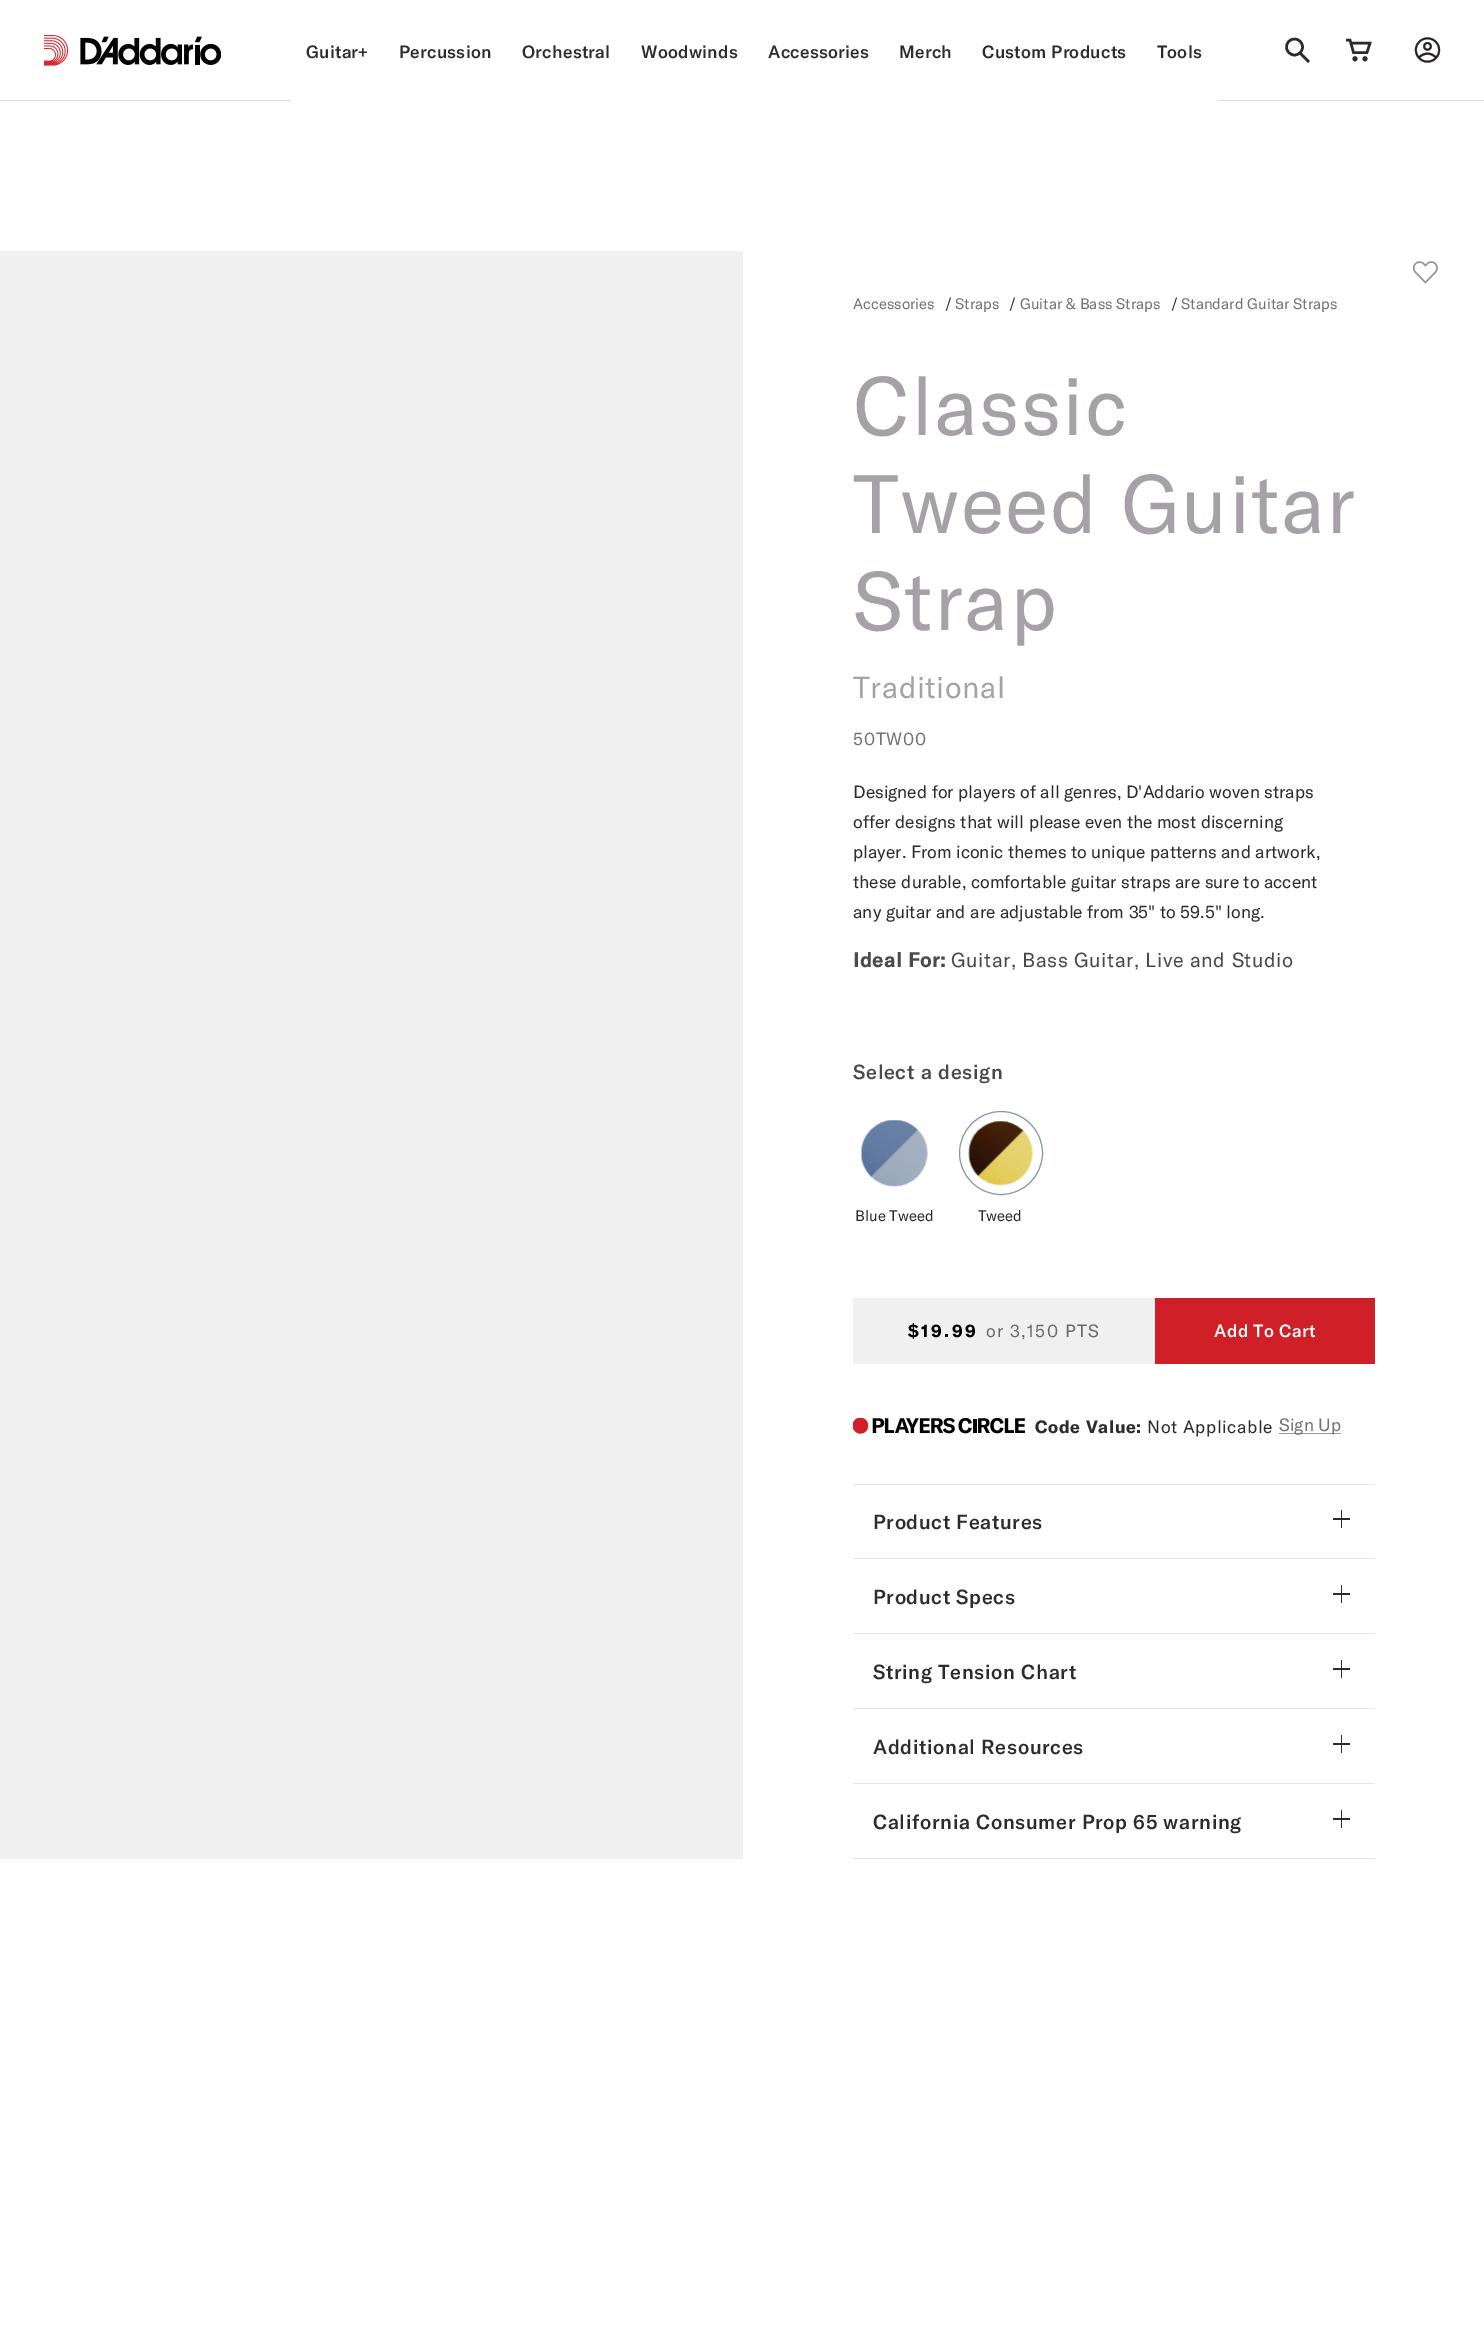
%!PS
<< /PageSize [1484 2330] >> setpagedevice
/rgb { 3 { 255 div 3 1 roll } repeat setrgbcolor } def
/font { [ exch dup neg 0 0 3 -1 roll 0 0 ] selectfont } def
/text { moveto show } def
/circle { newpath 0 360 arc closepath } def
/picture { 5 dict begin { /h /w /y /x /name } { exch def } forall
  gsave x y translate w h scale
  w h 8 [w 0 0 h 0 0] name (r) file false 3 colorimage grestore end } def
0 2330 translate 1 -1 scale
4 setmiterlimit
255 255 255 rgb
0 0 1484 2330 rectfill
219 223 228 rgb
0 100 1484 1 rectfill
(img_01.rgb) 44 35 25 31 picture
(img_02.rgb) 80 36 141 29 picture
255 255 255 rgb
291 100 927 1 rectfill
44 44 44 rgb
2.5 setlinewidth
1294.5 47 8 circle stroke
2 setlinecap
1308 61 moveto -7 -7 rlineto stroke
1355 58.8 2.5 circle fill
1365 58.8 2.5 circle fill
0 setlinecap
1346 40 moveto 4 0 rlineto 3.5 12.5 rlineto 13.5 0 rlineto 3 -9.5 rlineto -18 0 rlineto stroke
(img_03.rgb) 1414 37 27 26 picture
(img_04.rgb) 1412 261 26 23 picture
240 240 240 rgb
0 251 743 1608 rectfill
(img_05.rgb) 861 1120 67 67 picture
(img_06.rgb) 968 1121 65 65 picture
137 149 167 rgb
1 setlinewidth
1001 1153 41.5 circle stroke
240 240 240 rgb
853 1298 302 66 rectfill
207 32 39 rgb
1155 1298 220 66 rectfill
(img_07.rgb) 853 1418 172 16 picture
151 151 151 rgb
1279 1433 62 1 rectfill
226 230 235 rgb
853 1484 522 1 rectfill
853 1558 522 1 rectfill
44 44 44 rgb
1333 1518 17 2 rectfill
1341 1510 1 18 rectfill
226 230 235 rgb
853 1633 522 1 rectfill
44 44 44 rgb
1333 1593 17 2 rectfill
1341 1585 1 18 rectfill
226 230 235 rgb
853 1708 522 1 rectfill
44 44 44 rgb
1333 1668 17 2 rectfill
1341 1660 1 18 rectfill
226 230 235 rgb
853 1783 522 1 rectfill
44 44 44 rgb
1333 1743 17 2 rectfill
1341 1735 1 18 rectfill
226 230 235 rgb
853 1858 522 1 rectfill
44 44 44 rgb
1333 1818 17 2 rectfill
1341 1810 1 18 rectfill
/GTAmerica-Medium 17.5 font
306 58 moveto 0.25 0 (Guitar+) ashow
399 58 moveto 0.25 0 (Percussion) ashow
522 58 moveto 0.25 0 (Orchestral) ashow
641 58 moveto 0.25 0 (Woodwinds) ashow
768 58 moveto 0.25 0 (Accessories) ashow
899 58 moveto 0.25 0 (Merch) ashow
982 58 moveto 0.25 0 (Custom Products) ashow
1157 58 moveto 0.25 0 (Tools) ashow
/GTAmerica-Regular 15 font
115 115 115 rgb
(Accessories) 853 309 text
44 44 44 rgb
(/) 945 309 text
115 115 115 rgb
(Straps) 955 309 text
44 44 44 rgb
(/) 1009 309 text
115 115 115 rgb
(Guitar & Bass Straps) 1020 309 text
44 44 44 rgb
(/) 1171 309 text
115 115 115 rgb
(Standard Guitar Straps) 1181 309 text
/GTAmerica-Regular 81.25 font
166 161 166 rgb
853 435 moveto 1.25 0 (Classic) ashow
853 533 moveto 1.25 0 (Tweed Guitar) ashow
853 630 moveto 1.25 0 (Strap) ashow
/GTAmerica-Regular 30 font
853 698 moveto 0.6 0 (Traditional) ashow
/GTAmerica-Regular 17.5 font
115 115 115 rgb
853 745 moveto 0.75 0 (50TW00) ashow
44 44 44 rgb
(Designed for players of all genres, D'Addario woven straps) 853 798 text
(offer designs that will please even the most discerning) 853 828 text
(player. From iconic themes to unique patterns and artwork,) 853 858 text
(these durable, comfortable guitar straps are sure to accent) 853 888 text
(any guitar and are adjustable from 35" to 59.5" long.) 853 918 text
/GTAmerica-Bold 20 font
74 74 74 rgb
853 967 moveto 0.6 0 (Ideal For:) ashow
/GTAmerica-Regular 20 font
951 967 moveto 0.6 0 (Guitar, Bass Guitar, Live and Studio) ashow
/GTAmerica-Medium 20 font
853 1079 moveto 0.6 0 (Select a design) ashow
/GTAmerica-Regular 15 font
44 44 44 rgb
(Blue Tweed) 855 1221 text
(Tweed) 978 1221 text
/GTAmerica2-Bold 17.5 font
0 0 0 rgb
908 1337 moveto 2.5 0 ($19.99) ashow
/GTAmerica-Regular 17.5 font
107 107 107 rgb
986 1337 moveto 1.25 0 (or 3,150 PTS) ashow
/GTAmerica-Medium 17.5 font
255 255 255 rgb
1214 1337 moveto 0.4 0 (Add To Cart) ashow
/GTAmerica2-Bold 17.5 font
44 44 44 rgb
1035 1433 moveto 0.6 0 (Code Value:) ashow
/GTAmerica-Regular 17.5 font
1147 1433 moveto 0.6 0 (Not Applicable) ashow
115 115 115 rgb
(Sign Up) 1279 1431 text
/GTAmerica-Medium 20 font
44 44 44 rgb
873 1529 moveto 0.6 0 (Product Features) ashow
873 1604 moveto 0.6 0 (Product Specs) ashow
873 1679 moveto 0.6 0 (String Tension Chart) ashow
873 1754 moveto 0.6 0 (Additional Resources) ashow
873 1829 moveto 0.6 0 (California Consumer Prop 65 warning) ashow
showpage
